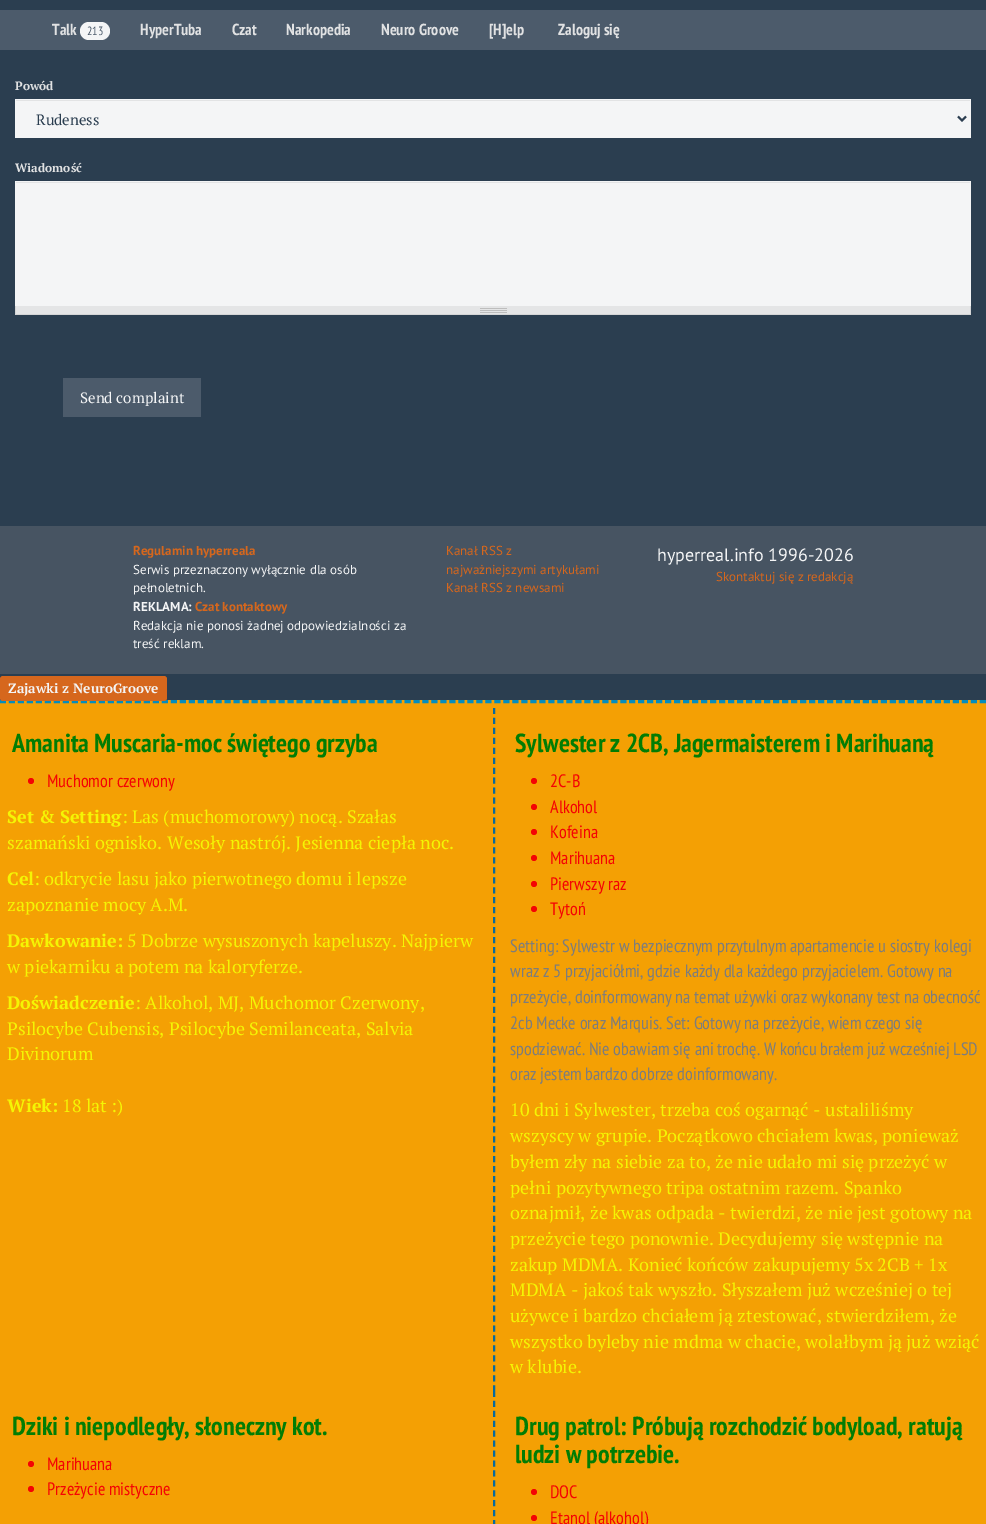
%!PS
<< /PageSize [986 1524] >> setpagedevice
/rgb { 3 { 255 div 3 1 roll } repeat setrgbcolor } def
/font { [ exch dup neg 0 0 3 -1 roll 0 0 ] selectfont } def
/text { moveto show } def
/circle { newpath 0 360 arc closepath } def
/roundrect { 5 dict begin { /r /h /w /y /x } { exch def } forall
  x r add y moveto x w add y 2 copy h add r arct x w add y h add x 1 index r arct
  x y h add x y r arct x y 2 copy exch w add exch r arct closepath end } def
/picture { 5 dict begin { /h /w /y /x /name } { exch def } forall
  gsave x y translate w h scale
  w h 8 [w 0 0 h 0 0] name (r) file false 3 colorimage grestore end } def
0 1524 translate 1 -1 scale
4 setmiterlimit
43 62 80 rgb
0 0 986 1524 rectfill
76 91 107 rgb
0 10 986 40 rectfill
244 245 246 rgb
80 22 30 18 9 roundrect fill
15 99 956 39 rectfill
226 227 228 rgb
16 100 954 1 rectfill
43 62 80 rgb
2 setlinewidth
958 116.5 moveto 4 4 rlineto 4 -4 rlineto stroke
244 245 246 rgb
15 181 956 125 rectfill
226 227 228 rgb
16 182 954 1 rectfill
228 229 230 rgb
16 306 954 8 rectfill
(img_01.rgb) 480 308 27 5 picture
212 213 214 rgb
970 306 1 9 rectfill
15 314 956 1 rectfill
15 306 1 9 rectfill
76 91 107 rgb
63 378 138 39 rectfill
71 84 98 rgb
0 526 986 148 rectfill
244 160 4 rgb
0 700 986 824 rectfill
4 141 189 rgb
3 setlinewidth
[6 2.99] 0 setdash
0 701.5 moveto 986 0 rlineto stroke
214 103 29 rgb
0 676 167 25 3 roundrect fill
244 3 4 rgb
31 781 3 circle fill
6 106 159 rgb
2 setlinewidth
[6 3.96] 0 setdash
494 708 moveto 0 683 rlineto stroke
244 3 4 rgb
534 781 3 circle fill
534 807 3 circle fill
534 832 3 circle fill
534 858 3 circle fill
534 884 3 circle fill
534 909 3 circle fill
31 1464 3 circle fill
31 1489 3 circle fill
6 106 159 rgb
[6 3.93] 0 setdash
494 1391 moveto 0 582 rlineto stroke
244 3 4 rgb
534 1492 3 circle fill
534 1518 3 circle fill
/PTSansNarrow-Bold 16 font
225 226 227 rgb
(Talk) 52 35 text
/PTSansNarrow-Regular 12 font
76 91 107 rgb
(213) 87 35 text
/PTSansNarrow-Bold 16 font
225 226 227 rgb
(HyperTuba) 140 35 text
(Czat) 232 35 text
(Narkopedia) 286 35 text
(Neuro Groove) 381 35 text
([H]elp) 489 35 text
(Zaloguj się) 558 35 text
/PTSerif-Bold 12 font
(Powód) 15 90 text
/PTSerif-Regular 15 font
43 62 80 rgb
(Rudeness) 36 125 text
/PTSerif-Bold 12 font
225 226 227 rgb
(Wiadomość) 15 172 text
/PTSerif-Regular 15 font
244 245 246 rgb
(Send complaint) 80 403 text
/PTSans-Bold 13 font
214 103 29 rgb
(Regulamin hyperreala) 133 555 text
/PTSans-Regular 13 font
244 245 246 rgb
(Serwis przeznaczony wyłącznie dla osób) 133 574 text
(pełnoletnich.) 133 592 text
/PTSans-Bold 13 font
(REKLAMA:) 133 611 text
214 103 29 rgb
(Czat kontaktowy) 195 611 text
/PTSans-Regular 13 font
244 245 246 rgb
(Redakcja nie ponosi żadnej odpowiedzialności za) 133 630 text
(treść reklam.) 133 648 text
214 103 29 rgb
(Kanał RSS z) 446 555 text
(najważniejszymi artykułami) 446 574 text
(Kanał RSS z newsami) 446 592 text
/PTSans-Regular 18 font
244 245 246 rgb
(hyperreal.info 1996-2026) 657 561 text
/PTSans-Regular 13 font
214 103 29 rgb
(Skontaktuj się z redakcją) 716 581 text
/PTSerif-Bold 13.5 font
244 245 246 rgb
(Zajawki z NeuroGroove) 8 693 text
/PTSansNarrow-Bold 26 font
2 125 4 rgb
(Amanita Muscaria-moc świętego grzyba) 12 752 text
/PTSansNarrow-Regular 18 font
244 3 4 rgb
(Muchomor czerwony) 47 787 text
/PTSerif-Bold 18 font
244 245 4 rgb
(Set & Setting) 7 823 text
/PTSerif-Regular 18 font
(: Las \(muchomorowy\) nocą. Szałas) 122 823 text
(szamański ognisko. Wesoły nastrój. Jesienna ciepła noc.) 7 849 text
/PTSerif-Bold 18 font
(Cel) 7 885 text
/PTSerif-Regular 18 font
(: odkrycie lasu jako pierwotnego domu i lepsze) 34 885 text
(zapoznanie mocy A.M.) 7 911 text
/PTSerif-Bold 18 font
(Dawkowanie:) 7 947 text
/PTSerif-Regular 18 font
(5 Dobrze wysuszonych kapeluszy. Najpierw) 127 947 text
(w piekarniku a potem na kaloryferze.) 7 973 text
/PTSerif-Bold 18 font
(Doświadczenie) 7 1009 text
/PTSerif-Regular 18 font
(: Alkohol, MJ, Muchomor Czerwony,) 135 1009 text
(Psilocybe Cubensis, Psilocybe Semilanceata, Salvia) 7 1035 text
(Divinorum) 7 1060 text
/PTSerif-Bold 18 font
(Wiek:) 7 1112 text
/PTSerif-Regular 18 font
(18 lat :\)) 62 1112 text
/PTSansNarrow-Bold 26 font
2 125 4 rgb
(Sylwester z 2CB, Jagermaisterem i Marihuaną) 515 752 text
/PTSansNarrow-Regular 18 font
244 3 4 rgb
(2C-B) 550 787 text
(Alkohol) 550 813 text
(Kofeina) 550 838 text
(Marihuana) 550 864 text
(Pierwszy raz) 550 890 text
(Tytoń) 550 915 text
124 125 126 rgb
(Setting: Sylwestr w bezpiecznym przytulnym apartamencie u siostry kolegi) 510 952 text
(wraz z 5 przyjaciółmi, gdzie każdy dla każdego przyjacielem. Gotowy na) 510 977 text
(przeżycie, doinformowany na temat używki oraz wykonany test na obecność) 510 1003 text
(2cb Mecke oraz Marquis. Set: Gotowy na przeżycie, wiem czego się) 510 1029 text
(spodziewać. Nie obawiam się ani trochę. W końcu brałem już wcześniej LSD) 510 1055 text
(oraz jestem bardzo dobrze doinformowany.) 510 1080 text
/PTSerif-Regular 18 font
244 245 4 rgb
(10 dni i Sylwester, trzeba coś ogarnąć - ustaliliśmy) 510 1116 text
(wszyscy w grupie. Początkowo chciałem kwas, ponieważ) 510 1142 text
(byłem zły na siebie za to, że nie udało mi się przeżyć w) 510 1168 text
(pełni pozytywnego tripa ostatnim razem. Spanko) 510 1194 text
(oznajmił, że kwas odpada - twierdzi, że nie jest gotowy na) 510 1219 text
(przeżycie tego ponownie. Decydujemy się wstępnie na) 510 1245 text
(zakup MDMA. Konieć końców zakupujemy 5x 2CB + 1x) 510 1271 text
(MDMA - jakoś tak wyszło. Słyszałem już wcześniej o tej) 510 1296 text
(używce i bardzo chciałem ją ztestować, stwierdziłem, że) 510 1322 text
(wszystko byleby nie mdma w chacie, wolałbym ją już wziąć) 510 1348 text
(w klubie.) 510 1373 text
/PTSansNarrow-Bold 26 font
2 125 4 rgb
(Dziki i niepodległy, słoneczny kot.) 12 1435 text
/PTSansNarrow-Regular 18 font
244 3 4 rgb
(Marihuana) 47 1470 text
(Przeżycie mistyczne) 47 1495 text
/PTSansNarrow-Bold 26 font
2 125 4 rgb
(Drug patrol: Próbują rozchodzić bodyload, ratują) 515 1435 text
(ludzi w potrzebie.) 515 1463 text
/PTSansNarrow-Regular 18 font
244 3 4 rgb
(DOC) 550 1498 text
(Etanol \(alkohol\)) 550 1524 text
showpage
